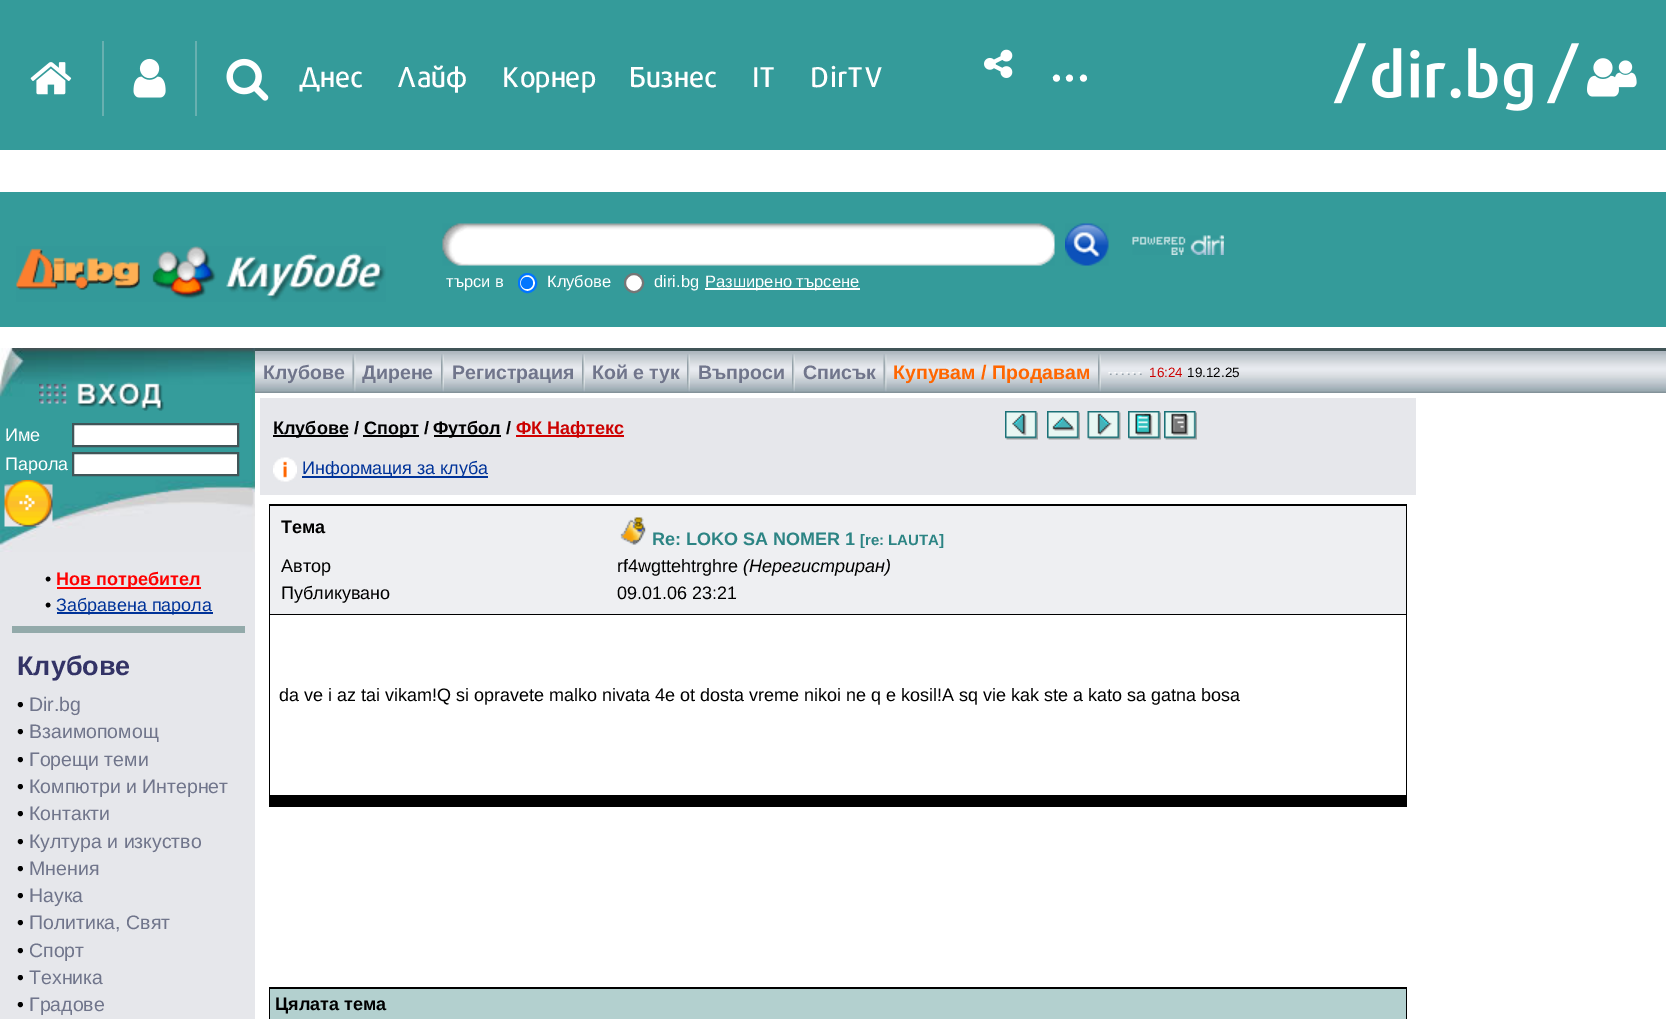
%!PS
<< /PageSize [1666 1019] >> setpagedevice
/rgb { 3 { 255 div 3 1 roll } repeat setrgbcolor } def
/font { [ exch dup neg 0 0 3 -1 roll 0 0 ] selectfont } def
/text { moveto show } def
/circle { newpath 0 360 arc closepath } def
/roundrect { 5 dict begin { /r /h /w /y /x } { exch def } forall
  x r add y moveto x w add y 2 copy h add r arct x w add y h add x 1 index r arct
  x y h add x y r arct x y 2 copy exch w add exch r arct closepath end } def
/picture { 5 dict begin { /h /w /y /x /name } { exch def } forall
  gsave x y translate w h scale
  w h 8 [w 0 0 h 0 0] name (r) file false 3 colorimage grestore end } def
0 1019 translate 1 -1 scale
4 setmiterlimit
255 255 255 rgb
0 0 1666 1019 rectfill
52 155 154 rgb
0 0 1666 150 rectfill
(img_01.rgb) 30 62 42 33 picture
104 176 176 rgb
102 41 2 75 rectfill
(img_02.rgb) 133 58 33 40 picture
195 41 2 75 rectfill
(img_03.rgb) 226 58 43 43 picture
(img_04.rgb) 984 49 29 29 picture
(img_05.rgb) 1333 43 246 68 picture
(img_06.rgb) 1587 58 50 39 picture
52 155 154 rgb
0 192 1666 135 rectfill
(img_07.rgb) 16 246 370 56 picture
(img_08.rgb) 442 223 613 43 picture
(img_09.rgb) 1065 223 44 43 picture
(img_10.rgb) 1132 235 92 20 picture
255 255 255 rgb
519 274 17 18 8.5 roundrect gsave fill grestore
0 117 255 rgb
2 setlinewidth
stroke
527 283 6 circle fill
255 255 255 rgb
634 283 9 circle gsave fill grestore
118 118 118 rgb
stroke
255 255 255 rgb
705 288 155 2 rectfill
230 231 235 rgb
0 552 255 467 rectfill
(img_11.rgb) 0 348 255 204 picture
(img_12.rgb) 39 382 125 29 picture
255 255 255 rgb
73 424 moveto 165 0 rlineto 0 22 rlineto -165 0 rlineto closepath gsave fill grestore
65 85 88 rgb
stroke
255 255 255 rgb
73 453 moveto 165 0 rlineto 0 22 rlineto -165 0 rlineto closepath gsave fill grestore
65 85 88 rgb
stroke
(img_13.rgb) 4 480 49 47 picture
255 0 0 rgb
57 587 144 2 rectfill
0 51 153 rgb
57 612 156 2 rectfill
147 170 170 rgb
12 626 233 7 rectfill
64 84 87 rgb
255 348 1411 3 rectfill
(img_14.rgb) 255 351 1411 42 picture
(img_15.rgb) 352 354 4 38 picture
(img_16.rgb) 441 354 3 38 picture
(img_16.rgb) 582 354 3 38 picture
(img_17.rgb) 687 354 3 38 picture
(img_17.rgb) 792 354 3 38 picture
(img_15.rgb) 883 354 4 38 picture
(img_16.rgb) 1098 354 3 38 picture
(img_18.rgb) 1108 372 34 3 picture
230 231 235 rgb
260 398 1156 97 rectfill
0 0 0 rgb
273 435 75 2 rectfill
363 435 56 2 rectfill
434 435 67 2 rectfill
208 0 0 rgb
516 435 108 2 rectfill
(img_19.rgb) 1005 411 33 29 picture
(img_20.rgb) 1047 411 33 29 picture
(img_21.rgb) 1087 411 34 29 picture
(img_22.rgb) 1128 411 33 29 picture
(img_23.rgb) 1164 411 33 29 picture
(img_24.rgb) 273 457 24 25 picture
0 51 153 rgb
302 476 186 2 rectfill
0 0 0 rgb
269 504 1138 303 rectfill
238 239 242 rgb
270 506 1136 108 rectfill
(img_25.rgb) 620 517 26 28 picture
255 255 255 rgb
270 615 1136 180 rectfill
0 0 0 rgb
269 987 1138 32 rectfill
179 208 207 rgb
270 989 1136 30 rectfill
/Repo-Medium 28.5 font
255 255 255 rgb
(Днес) 299 87 text
(Лайф) 398 87 text
(Корнер) 502 87 text
(Бизнес) 630 87 text
(IT) 752 87 text
(DirTV) 810 87 text
/Repo-Medium 52 font
(...) 1050 81 text
/LiberationSans-Regular 16.5 font
(търси в) 446 287 text
(Клубове) 547 287 text
(diri.bg) 654 287 text
(Разширено търсене) 705 287 text
/LiberationSans-Regular 18 font
(Име) 5 441 text
(Парола) 5 470 text
0 0 0 rgb
(•) 45 585 text
/LiberationSans-Bold 18 font
255 0 0 rgb
(Нов потребител) 56 585 text
/LiberationSans-Regular 18 font
0 0 0 rgb
(•) 45 611 text
0 51 153 rgb
(Забравена парола) 56 611 text
/LiberationSans-Bold 27 font
51 51 102 rgb
(Клубове) 17 675 text
/LiberationSans-Regular 19.5 font
0 0 0 rgb
(•) 17 711 text
112 117 139 rgb
(Dir.bg) 29 711 text
0 0 0 rgb
(•) 17 738 text
112 117 139 rgb
(Взаимопомощ) 29 738 text
0 0 0 rgb
(•) 17 766 text
112 117 139 rgb
(Горещи теми) 29 766 text
0 0 0 rgb
(•) 17 793 text
112 117 139 rgb
(Компютри и Интернет) 29 793 text
0 0 0 rgb
(•) 17 820 text
112 117 139 rgb
(Контакти) 29 820 text
0 0 0 rgb
(•) 17 848 text
112 117 139 rgb
(Култура и изкуство) 29 848 text
0 0 0 rgb
(•) 17 875 text
112 117 139 rgb
(Мнения) 29 875 text
0 0 0 rgb
(•) 17 902 text
112 117 139 rgb
(Наука) 29 902 text
0 0 0 rgb
(•) 17 929 text
112 117 139 rgb
(Политика, Свят) 29 929 text
0 0 0 rgb
(•) 17 957 text
112 117 139 rgb
(Спорт) 29 957 text
0 0 0 rgb
(•) 17 984 text
112 117 139 rgb
(Техника) 29 984 text
0 0 0 rgb
(•) 17 1011 text
112 117 139 rgb
(Градове) 29 1011 text
/LiberationSans-Bold 19.5 font
(Клубове) 263 379 text
(Дирене) 362 379 text
(Регистрация) 452 379 text
(Кой е тук) 592 379 text
(Въпроси) 698 379 text
(Списък) 803 379 text
255 102 0 rgb
(Купувам / Продавам) 893 379 text
/LiberationSans-Regular 13.5 font
204 0 0 rgb
(16:24) 1149 377 text
0 0 0 rgb
(19.12.25) 1187 377 text
/LiberationSans-Bold 18 font
(Клубове /) 273 434 text
(Спорт /) 364 434 text
(Футбол /) 433 434 text
204 0 0 rgb
(ФК Нафтекс) 516 434 text
/LiberationSans-Regular 18 font
0 51 153 rgb
(Информация за клуба) 302 474 text
/LiberationSans-Bold 18 font
0 0 0 rgb
(Тема) 281 533 text
44 132 132 rgb
(Re: LOKO SA NOMER 1) 652 545 text
/LiberationSans-Bold 15 font
([re: LAUTA]) 860 545 text
/LiberationSans-Regular 18 font
0 0 0 rgb
(Автор) 281 572 text
(rf4wgttehtrghre) 617 572 text
/LiberationSans-Italic 18 font
(\(Нерегистриран\)) 743 572 text
/LiberationSans-Regular 18 font
(Публикувано) 281 599 text
(09.01.06 23:21) 617 599 text
(da ve i az tai vikam!Q si opravete malko nivata 4e ot dosta vreme nikoi ne q e kosil!A sq vie kak ste a kato sa gatna bosa) 279 701 text
/LiberationSans-Bold 18 font
(Цялата тема) 275 1010 text
showpage
